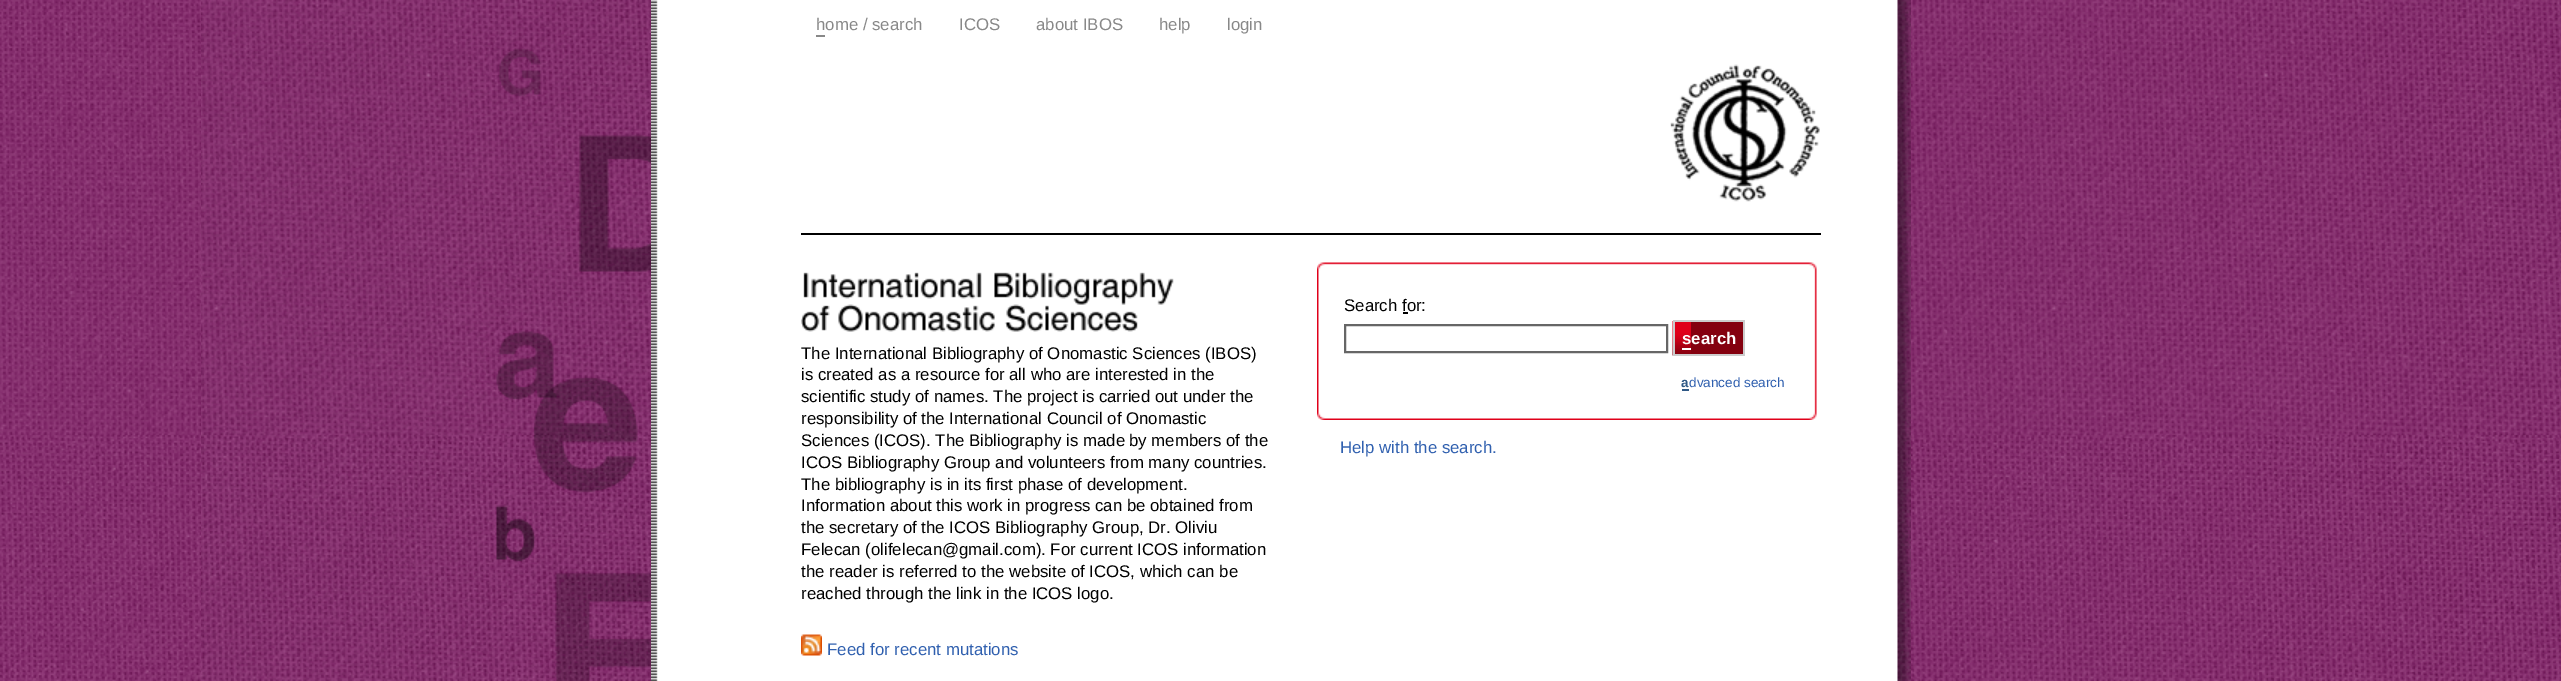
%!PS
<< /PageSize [2561 681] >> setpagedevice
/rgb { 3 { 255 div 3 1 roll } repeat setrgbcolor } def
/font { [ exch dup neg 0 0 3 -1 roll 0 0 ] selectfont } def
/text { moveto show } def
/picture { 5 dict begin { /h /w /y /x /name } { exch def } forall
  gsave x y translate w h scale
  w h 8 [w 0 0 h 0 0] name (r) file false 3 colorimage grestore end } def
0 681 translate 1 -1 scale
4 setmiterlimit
255 255 255 rgb
0 0 2561 681 rectfill
(img_01.rgb) 0 0 2561 681 picture
(img_02.rgb) 651 0 1260 681 picture
(img_03.rgb) 201 0 450 681 picture
136 136 136 rgb
816 35 9 2 rectfill
0 0 0 rgb
801 233 1020 2 rectfill
(img_04.rgb) 1670 64 150 138 picture
(img_05.rgb) 801 272 373 60 picture
(img_06.rgb) 1317 262 500 59 picture
1403 312 5 2 rectfill
(img_07.rgb) 1317 321 500 99 picture
102 102 102 rgb
2 setlinewidth
1345 325 322 27 rectstroke
(img_08.rgb) 1672 321 19 35 picture
204 204 204 rgb
1673 320 72 2 rectfill
1673 354 18 2 rectfill
1673 320 2 36 rectfill
132 0 15 rgb
1691 322 52 32 rectfill
204 204 204 rgb
1743 320 2 36 rectfill
1691 354 54 2 rectfill
255 255 255 rgb
1682 348 9 2 rectfill
46 88 133 rgb
1682 389 7 2 rectfill
(img_09.rgb) 801 634 21 22 picture
/LiberationSans-Regular 16.8 font
136 136 136 rgb
(home / search) 816 30 text
(ICOS) 959 30 text
(about IBOS) 1036 30 text
(help) 1159 30 text
(login) 1227 30 text
0 0 0 rgb
(The International Bibliography of Onomastic Sciences \(IBOS\)) 801 359 text
(is created as a resource for all who are interested in the) 801 380 text
(scientific study of names. The project is carried out under the) 801 402 text
(responsibility of the International Council of Onomastic) 801 424 text
(Sciences \(ICOS\). The Bibliography is made) 801 446 text
(by members of the) 1129 446 text
(ICOS Bibliography Group and volunteers from many countries.) 801 468 text
(The bibliography is in its first phase of development.) 801 490 text
(Information about this work in progress can be obtained from) 801 511 text
(the secretary of the ICOS Bibliography Group, Dr. Oliviu) 801 533 text
(Felecan \(olifelecan@gmail.com\). For current ICOS information) 801 555 text
(the reader is referred to the website of ICOS, which can be) 801 577 text
(reached through the link in the ICOS logo.) 801 599 text
(Search for:) 1344 311 text
/LiberationSans-Bold 16.8 font
255 255 255 rgb
(search) 1682 344 text
/LiberationSans-Bold 13.5 font
46 88 133 rgb
(a) 1681 387 text
/LiberationSans-Regular 13.5 font
48 96 175 rgb
(dvanced search) 1689 387 text
/LiberationSans-Regular 16.8 font
(Help with the search.) 1340 453 text
(Feed for recent mutations) 827 655 text
showpage
